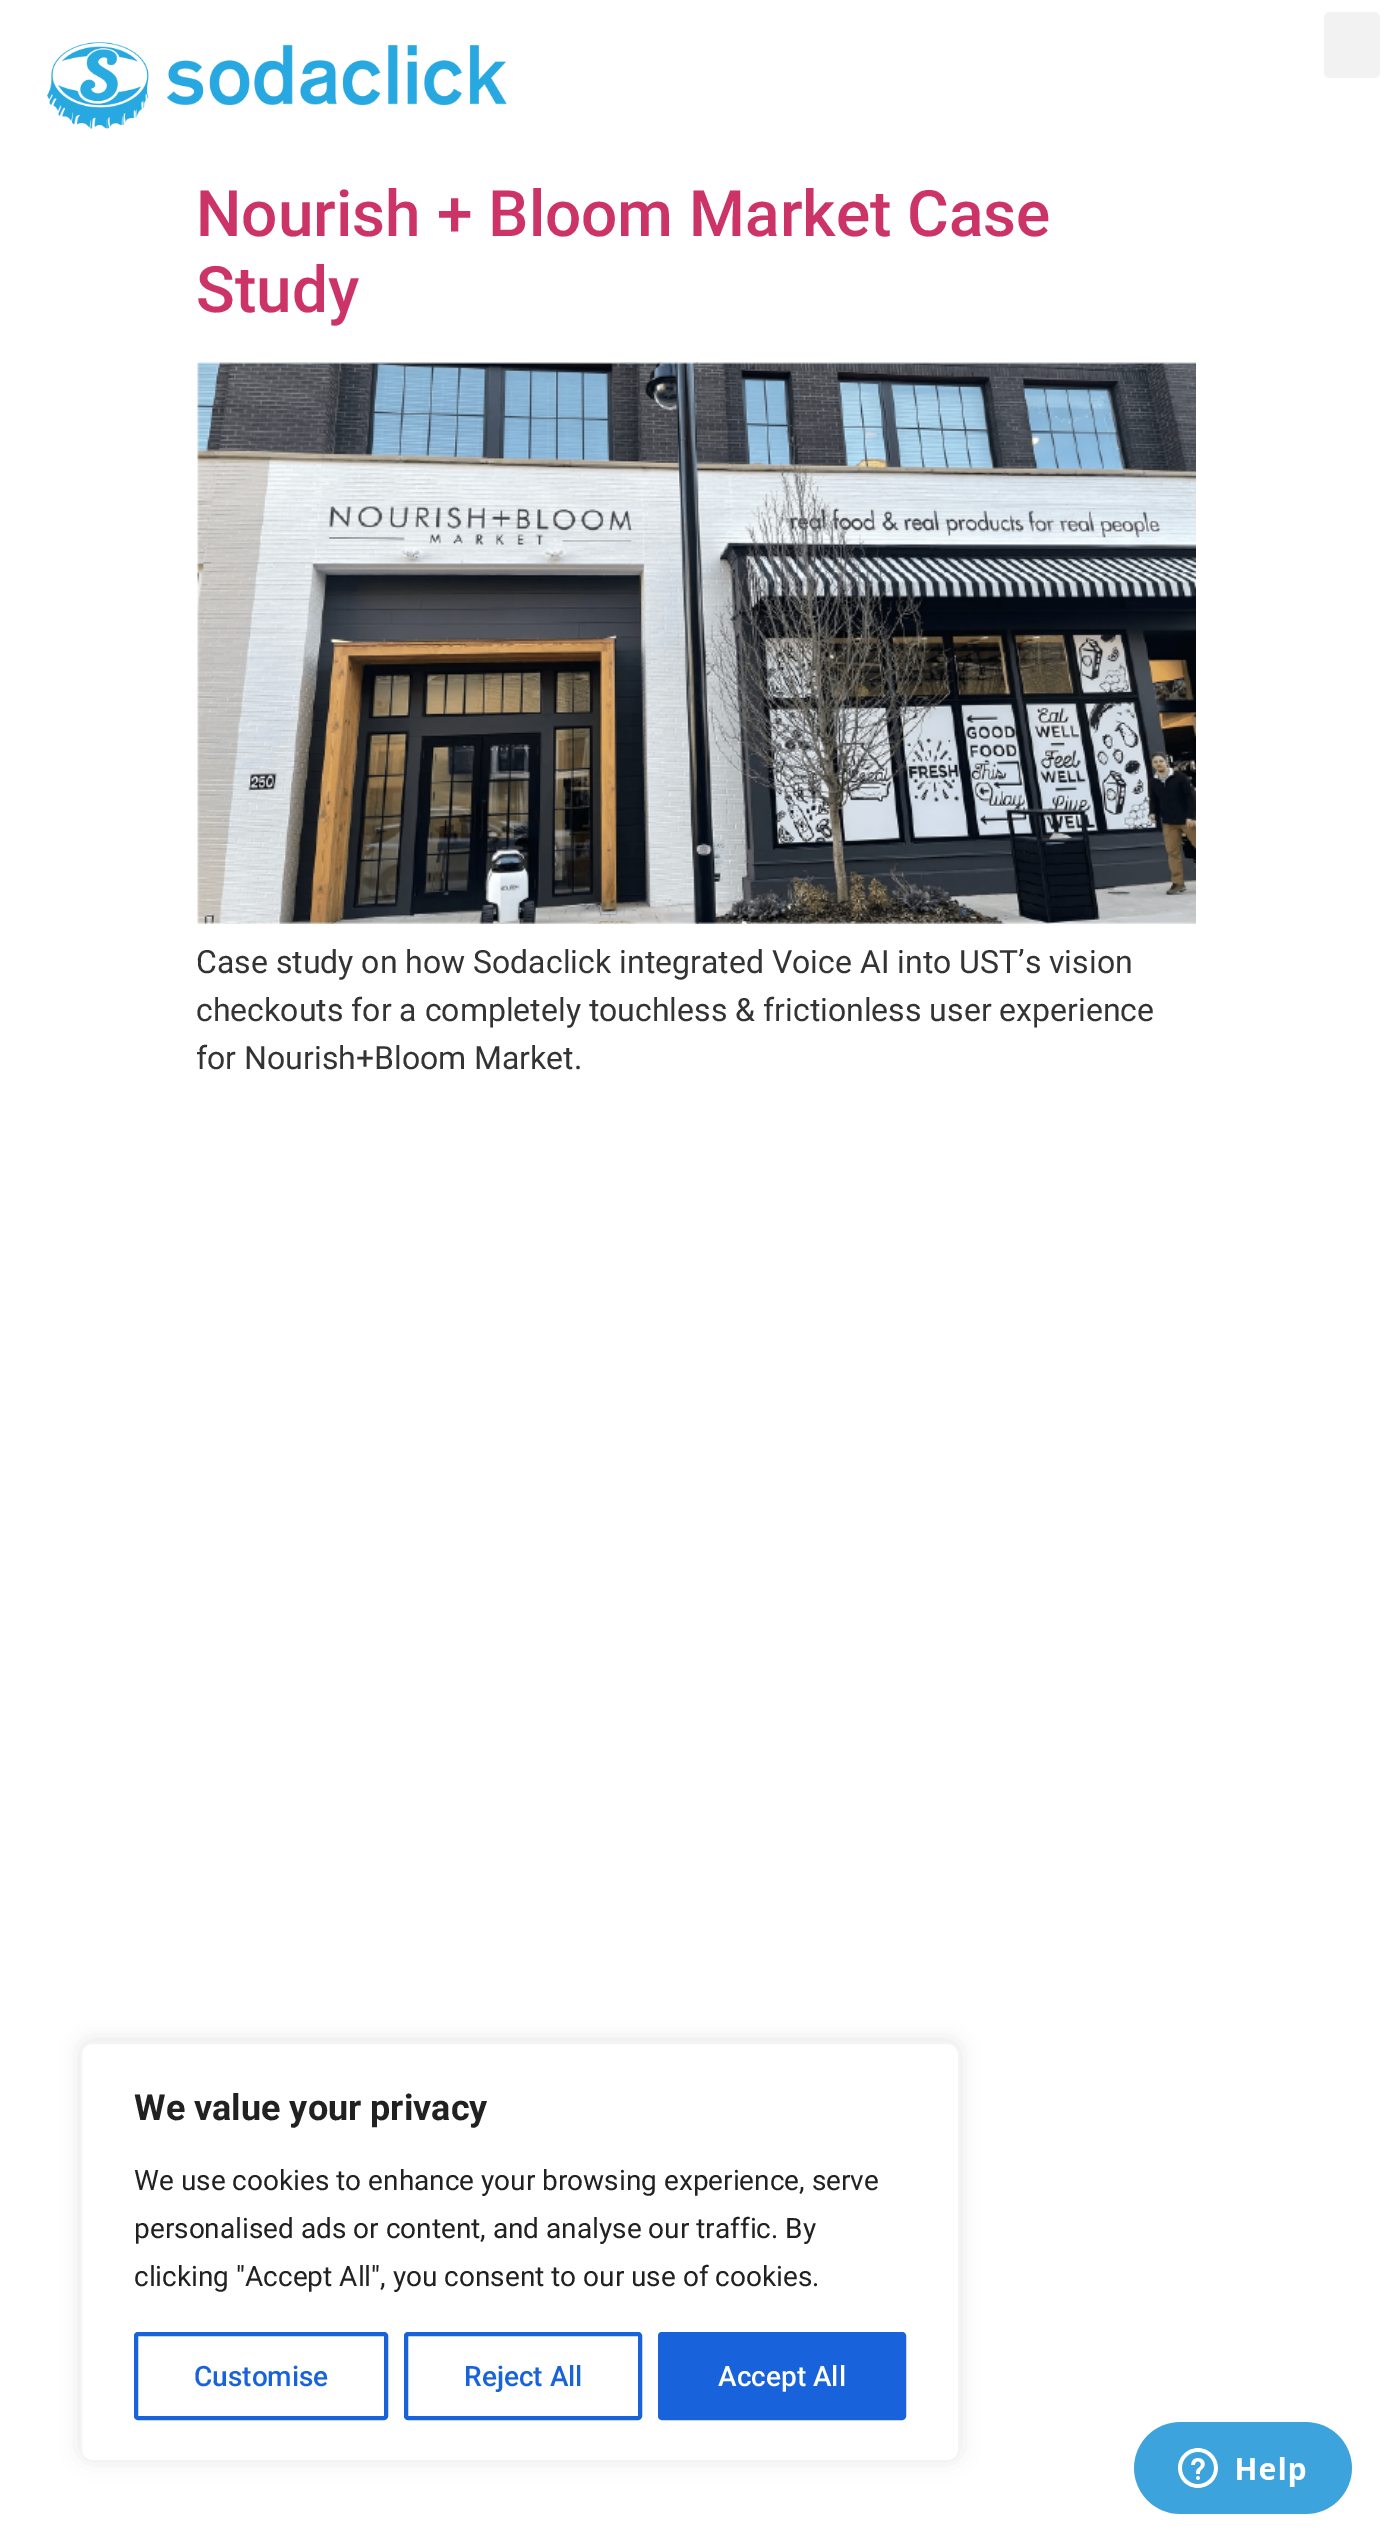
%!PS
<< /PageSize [1392 2541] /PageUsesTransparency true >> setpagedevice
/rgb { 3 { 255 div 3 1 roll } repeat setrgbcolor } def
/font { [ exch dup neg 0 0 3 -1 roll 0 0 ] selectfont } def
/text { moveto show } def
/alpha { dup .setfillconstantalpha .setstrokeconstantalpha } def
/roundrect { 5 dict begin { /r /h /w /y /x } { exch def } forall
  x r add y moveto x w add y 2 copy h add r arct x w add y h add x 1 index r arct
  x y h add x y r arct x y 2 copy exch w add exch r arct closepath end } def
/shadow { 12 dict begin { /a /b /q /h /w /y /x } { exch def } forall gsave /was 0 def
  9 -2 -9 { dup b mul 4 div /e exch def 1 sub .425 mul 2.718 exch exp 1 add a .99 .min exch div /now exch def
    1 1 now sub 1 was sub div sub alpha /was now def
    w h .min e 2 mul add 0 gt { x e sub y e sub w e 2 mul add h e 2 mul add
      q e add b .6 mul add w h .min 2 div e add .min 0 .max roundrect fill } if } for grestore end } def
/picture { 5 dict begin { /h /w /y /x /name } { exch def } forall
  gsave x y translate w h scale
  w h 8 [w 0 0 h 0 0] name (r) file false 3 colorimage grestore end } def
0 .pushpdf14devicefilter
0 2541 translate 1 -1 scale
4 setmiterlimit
255 255 255 rgb
0 0 1392 2541 rectfill
(img_01.rgb) 47 42 460 87 picture
242 242 242 rgb
1324 12 56 66 6 roundrect fill
(img_02.rgb) 197 362 999 562 picture
172 171 171 rgb
80 2040 880 420 12 10 0.3 shadow
255 255 255 rgb
81 2043 878 418 11 roundrect gsave fill grestore
244 244 244 rgb
2 setlinewidth
stroke
24 99 220 rgb
4 setlinewidth
136 2334 250 84 2 roundrect stroke
406 2334 234 84 2 roundrect stroke
660 2334 244 84 2 roundrect gsave fill grestore
stroke
(img_03.rgb) 1134 2422 218 92 picture
/Roboto-Medium 64 font
204 51 102 rgb
(Nourish + Bloom Market Case) 196 236 text
(Study) 196 312 text
/Roboto-Regular 32 font
51 51 51 rgb
(Case study on how Sodaclick integrated Voice AI into UST’s vision) 196 973 text
(checkouts for a completely touchless & frictionless user experience) 196 1021 text
(for Nourish+Bloom Market.) 196 1069 text
/Roboto-Bold 36 font
33 33 33 rgb
(We value your privacy) 134 2120 text
/Roboto-Regular 28 font
(We use cookies to enhance your browsing experience, serve) 134 2190 text
(personalised ads or content, and analyse our traffic. By) 134 2238 text
(clicking "Accept All", you consent to our use of cookies.) 134 2286 text
/Roboto-Medium 28 font
24 99 220 rgb
(Customise) 194 2386 text
(Reject All) 464 2386 text
255 255 255 rgb
(Accept All) 718 2386 text
.poppdf14devicefilter showpage
